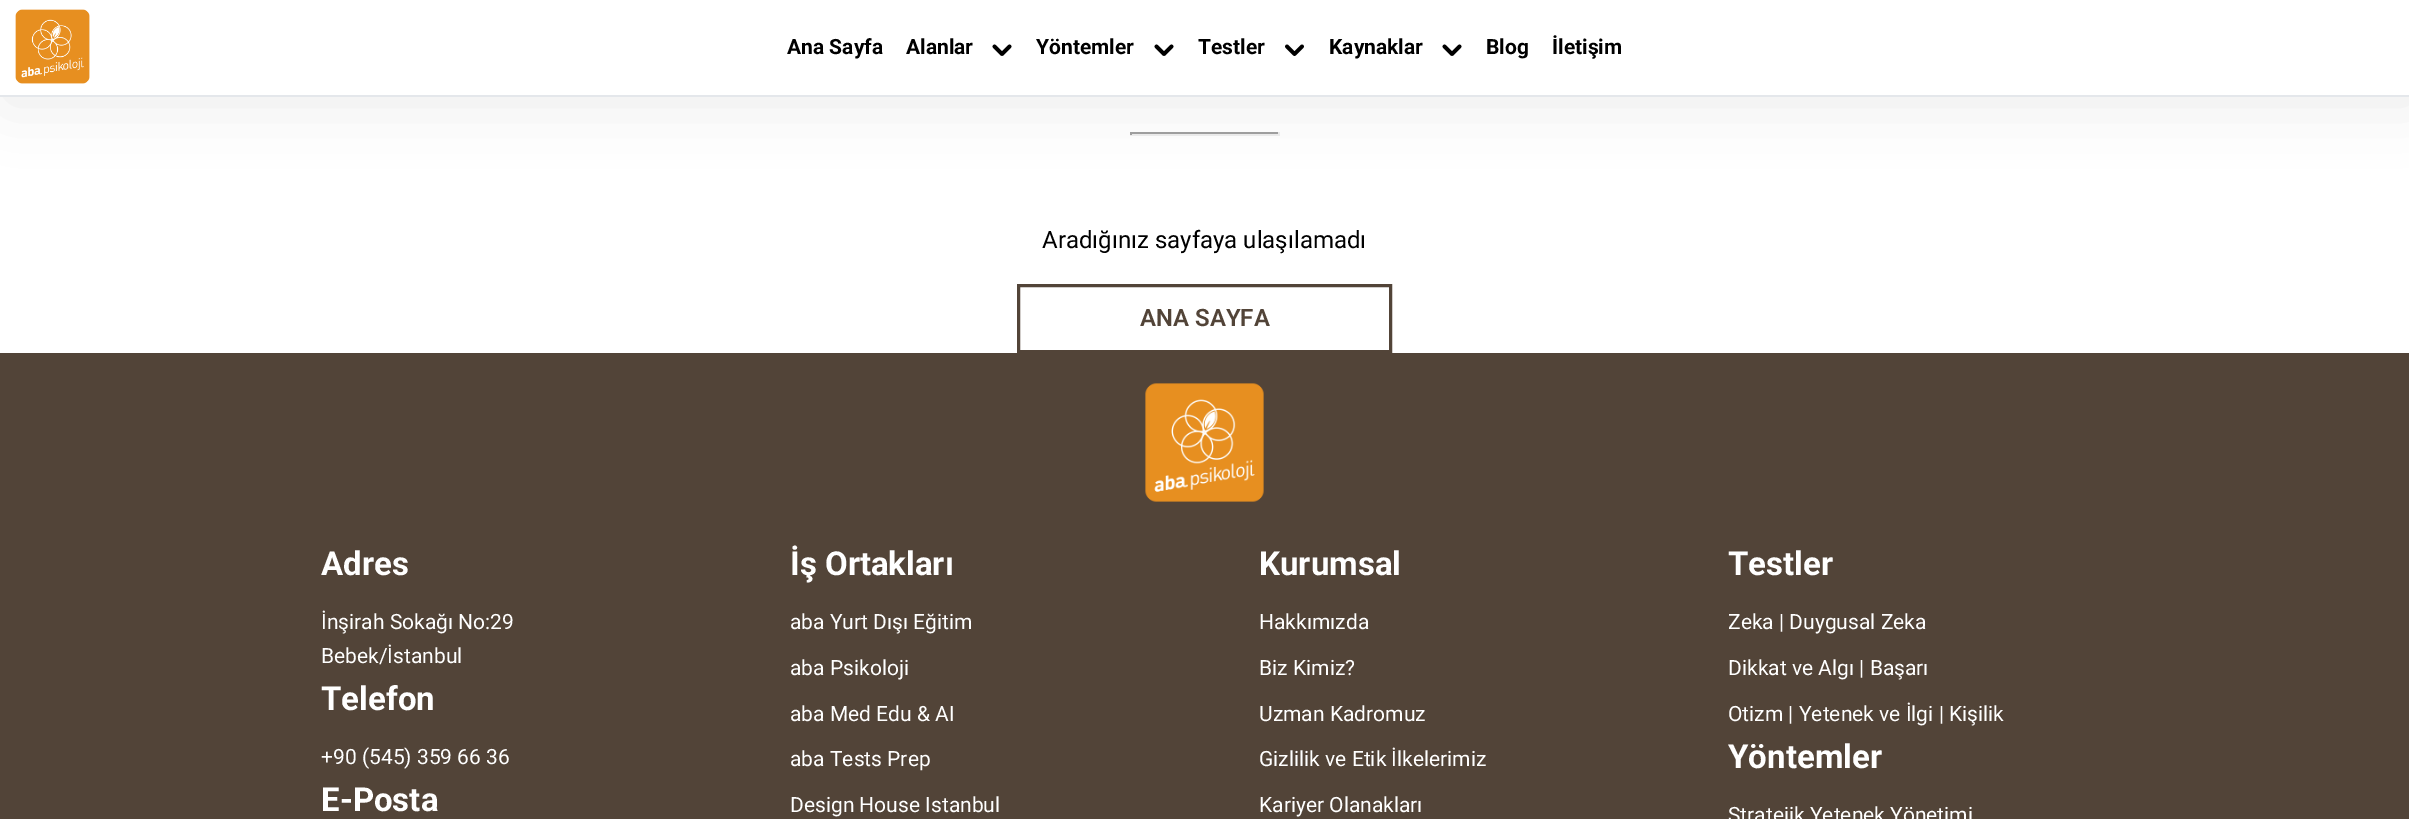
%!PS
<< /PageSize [2409 819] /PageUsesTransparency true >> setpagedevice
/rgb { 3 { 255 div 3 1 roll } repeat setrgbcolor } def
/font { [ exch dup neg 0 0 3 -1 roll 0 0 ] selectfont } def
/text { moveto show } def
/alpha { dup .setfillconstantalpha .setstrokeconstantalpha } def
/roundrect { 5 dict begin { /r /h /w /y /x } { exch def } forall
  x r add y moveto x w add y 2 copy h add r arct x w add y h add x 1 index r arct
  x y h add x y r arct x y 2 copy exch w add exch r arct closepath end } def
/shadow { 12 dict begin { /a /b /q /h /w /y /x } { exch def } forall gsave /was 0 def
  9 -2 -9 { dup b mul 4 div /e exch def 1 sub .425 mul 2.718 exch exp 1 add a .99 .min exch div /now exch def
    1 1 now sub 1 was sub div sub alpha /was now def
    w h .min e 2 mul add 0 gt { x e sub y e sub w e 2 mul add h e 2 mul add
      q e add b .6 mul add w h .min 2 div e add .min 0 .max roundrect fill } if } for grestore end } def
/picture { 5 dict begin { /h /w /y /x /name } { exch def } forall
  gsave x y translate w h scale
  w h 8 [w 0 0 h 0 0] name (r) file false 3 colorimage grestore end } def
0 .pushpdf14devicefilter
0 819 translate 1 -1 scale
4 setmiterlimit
255 255 255 rgb
0 0 2409 819 rectfill
159 159 159 rgb
1130 132 150 2 rectfill
238 238 238 rgb
1278 132 2 3 rectfill
1130 134 150 2 rectfill
159 159 159 rgb
1130 132 2 3 rectfill
43 43 43 rgb
6 5 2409 96 0 30 0.1 shadow
255 255 255 rgb
0 0 2409 95 rectfill
228 231 235 rgb
0 95 2409 2 rectfill
(img_01.rgb) 15 9 75 75 picture
0 0 0 rgb
3.8 setlinewidth
1 setlinecap
1 setlinejoin
994.5 46.5 moveto 7.5 7.5 rlineto 7.5 -7.5 rlineto stroke
1156.5 46.5 moveto 7.5 7.5 rlineto 7.5 -7.5 rlineto stroke
1287 46.5 moveto 7.5 7.5 rlineto 7.5 -7.5 rlineto stroke
1444.5 46.5 moveto 7.5 7.5 rlineto 7.5 -7.5 rlineto stroke
82 68 56 rgb
3 setlinewidth
0 setlinecap
0 setlinejoin
1018.5 285.5 372 66 rectstroke
0 353 2409 466 rectfill
(img_02.rgb) 1145 383 119 119 picture
/Roboto-Bold 21 font
0 0 0 rgb
(Ana Sayfa) 787 54 text
(Alanlar) 906 54 text
(Yöntemler) 1036 54 text
(Testler) 1198 54 text
(Kaynaklar) 1329 54 text
(Blog) 1486 54 text
(İletişim) 1552 54 text
/Roboto-Regular 24 font
(Aradığınız sayfaya ulaşılamadı) 1042 248 text
/Roboto-SemiBold 24 font
82 68 56 rgb
(ANA SAYFA) 1140 326 text
/Roboto-Bold 33 font
255 255 255 rgb
(Adres) 321 575 text
/Roboto-Regular 21 font
(İnşirah Sokağı No:29) 321 629 text
(Bebek/İstanbul) 321 663 text
/Roboto-Bold 33 font
(Telefon) 321 710 text
/Roboto-Regular 21 font
(+90 \(545\) 359 66 36) 321 764 text
/Roboto-Bold 33 font
(E-Posta) 321 811 text
(İş Ortakları) 790 575 text
/Roboto-Regular 21 font
(aba Yurt Dışı Eğitim) 790 629 text
(aba Psikoloji) 790 675 text
(aba Med Edu & AI) 790 721 text
(aba Tests Prep) 790 766 text
(Design House Istanbul) 790 812 text
/Roboto-Bold 33 font
(Kurumsal) 1259 575 text
/Roboto-Regular 21 font
(Hakkımızda) 1259 629 text
(Biz Kimiz?) 1259 675 text
(Uzman Kadromuz) 1259 721 text
(Gizlilik ve Etik İlkelerimiz) 1259 766 text
(Kariyer Olanakları) 1259 812 text
/Roboto-Bold 33 font
(Testler) 1728 575 text
/Roboto-Regular 21 font
(Zeka | Duygusal Zeka) 1728 629 text
(Dikkat ve Algı | Başarı) 1728 675 text
(Otizm | Yetenek ve İlgi | Kişilik) 1728 721 text
/Roboto-Bold 33 font
(Yöntemler) 1728 768 text
/Roboto-Regular 21 font
(Stratejik Yetenek Yönetimi) 1728 822 text
.poppdf14devicefilter showpage
